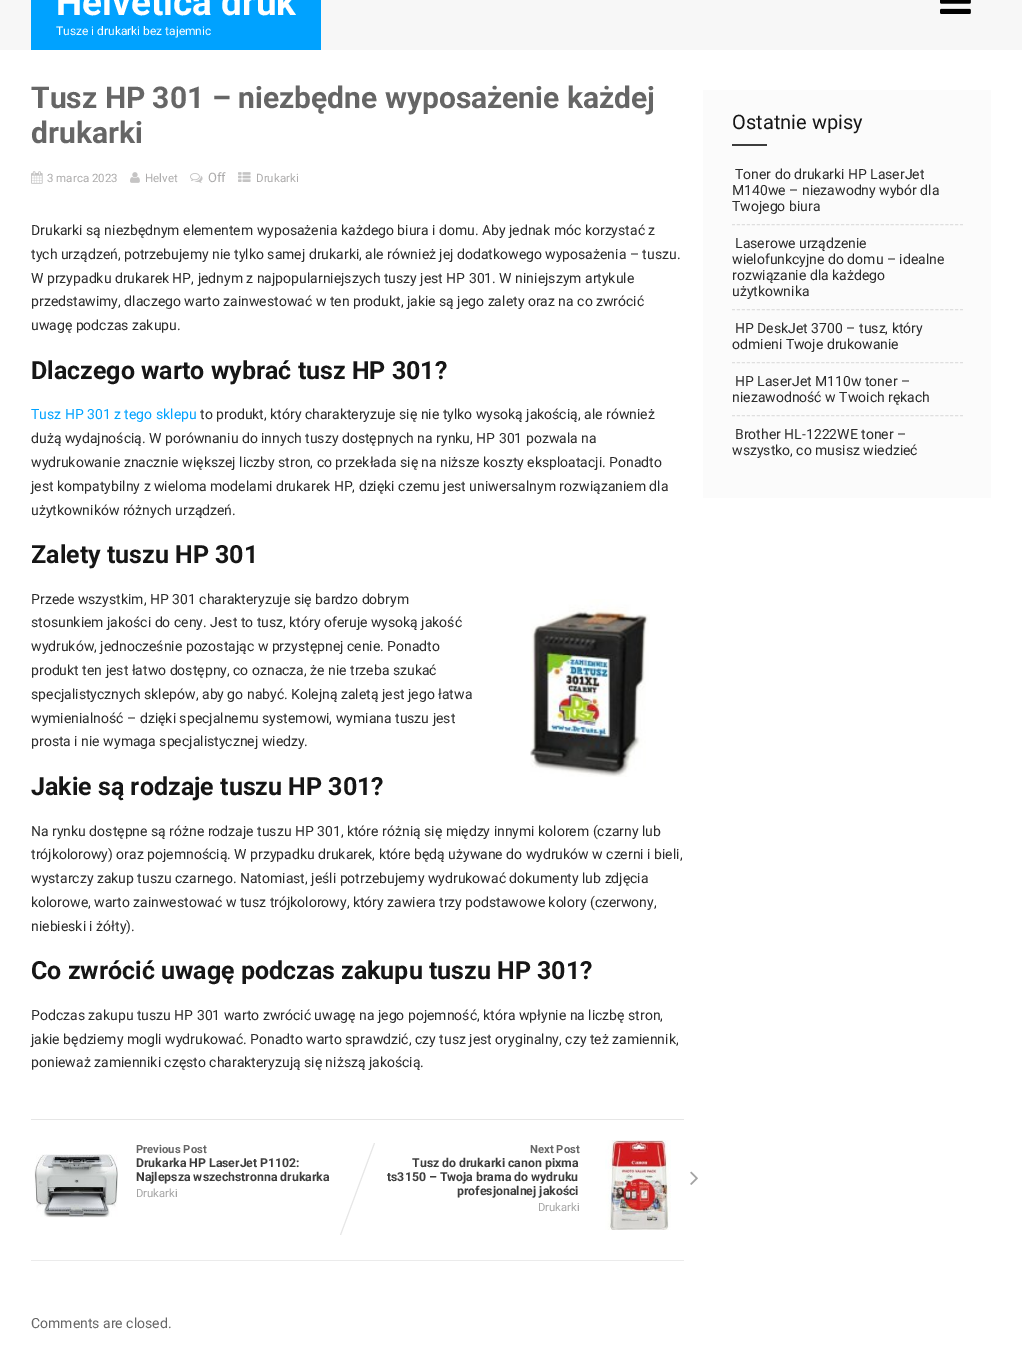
%!PS
<< /PageSize [1022 1369] >> setpagedevice
/rgb { 3 { 255 div 3 1 roll } repeat setrgbcolor } def
/font { [ exch dup neg 0 0 3 -1 roll 0 0 ] selectfont } def
/text { moveto show } def
/picture { 5 dict begin { /h /w /y /x /name } { exch def } forall
  gsave x y translate w h scale
  w h 8 [w 0 0 h 0 0] name (r) file false 3 colorimage grestore end } def
0 1369 translate 1 -1 scale
4 setmiterlimit
255 255 255 rgb
0 0 1022 1369 rectfill
247 247 247 rgb
0 0 1022 50 rectfill
0 162 255 rgb
31 0 290 50 rectfill
(img_01.rgb) 940 0 31 14 picture
(img_02.rgb) 31 171 12 13 picture
(img_03.rgb) 130 172 10 11 picture
(img_04.rgb) 190 173 13 10 picture
(img_05.rgb) 238 172 13 10 picture
(img_06.rgb) 530 599 120 178 picture
230 230 230 rgb
31 1119 653 1 rectfill
235 235 235 rgb
31 1260 653 1 rectfill
(img_07.rgb) 34 1154 84 64 picture
230 230 230 rgb
374 1143 moveto 1 0 rlineto -34 92 rlineto -1 0 rlineto closepath fill
(img_08.rgb) 605 1140 66 90 picture
(img_09.rgb) 690 1171 8 14 picture
251 251 251 rgb
703 90 288 408 rectfill
61 61 61 rgb
732 144 35 2 rectfill
223 223 223 rgb
[3 1.96] 0 setdash
732 224.5 moveto 231 0 rlineto stroke
732 309.5 moveto 231 0 rlineto stroke
732 362.5 moveto 231 0 rlineto stroke
732 415.5 moveto 231 0 rlineto stroke
/Roboto-Bold 37 font
255 255 255 rgb
(Helvetica druk) 56 15 text
/Roboto-Regular 12 font
(Tusze i drukarki bez tajemnic) 56 35 text
/Roboto-Bold 30 font
102 102 102 rgb
(Tusz HP 301 – niezbędne wyposażenie każdej) 31 108 text
(drukarki) 31 143 text
/Roboto-Regular 11.5 font
172 171 171 rgb
(3 marca 2023) 47 182 text
(Helvet) 145 182 text
/Roboto-Regular 13 font
(Off) 208 182 text
/Roboto-Regular 11.5 font
(Drukarki) 256 182 text
/Roboto-Regular 14 font
43 43 43 rgb
(Drukarki są niezbędnym elementem wyposażenia każdego biura i domu. Aby jednak móc korzystać z) 31 235 text
(tych urządzeń, potrzebujemy nie tylko samej drukarki, ale również jej dodatkowego wyposażenia – tuszu.) 31 259 text
(W przypadku drukarek HP, jednym z najpopularniejszych tuszy jest HP 301. W niniejszym artykule) 31 283 text
(przedstawimy, dlaczego warto zainwestować w ten produkt, jakie są jego zalety oraz na co zwrócić) 31 306 text
(uwagę podczas zakupu.) 31 330 text
/Roboto-Bold 25 font
22 22 22 rgb
(Dlaczego warto wybrać tusz HP 301?) 31 379 text
/Roboto-Regular 14 font
0 162 255 rgb
(Tusz HP 301 z tego sklepu) 31 419 text
43 43 43 rgb
(to produkt, który charakteryzuje się nie tylko wysoką jakością, ale również) 200 419 text
(dużą wydajnością. W porównaniu do innych tuszy dostępnych na rynku, HP 301 pozwala na) 31 443 text
(wydrukowanie znacznie większej liczby stron, co przekłada się na niższe koszty eksploatacji. Ponadto) 31 467 text
(jest kompatybilny z wieloma modelami drukarek HP, dzięki czemu jest uniwersalnym rozwiązaniem dla) 31 491 text
(użytkowników różnych urządzeń.) 31 515 text
/Roboto-Bold 25 font
22 22 22 rgb
(Zalety tuszu HP 301) 31 563 text
/Roboto-Regular 14 font
43 43 43 rgb
(Przede wszystkim, HP 301 charakteryzuje się bardzo dobrym) 31 604 text
(stosunkiem jakości do ceny. Jest to tusz, który oferuje wysoką jakość) 31 627 text
(wydruków, jednocześnie pozostając w przystępnej cenie. Ponadto) 31 651 text
(produkt ten jest łatwo dostępny, co oznacza, że nie trzeba szukać) 31 675 text
(specjalistycznych sklepów, aby go nabyć. Kolejną zaletą jest jego łatwa) 31 699 text
(wymienialność – dzięki specjalnemu systemowi, wymiana tuszu jest) 31 723 text
(prosta i nie wymaga specjalistycznej wiedzy.) 31 746 text
/Roboto-Bold 25 font
22 22 22 rgb
(Jakie są rodzaje tuszu HP 301?) 31 795 text
/Roboto-Regular 14 font
43 43 43 rgb
(Na rynku dostępne są różne rodzaje tuszu HP 301, które różnią się między innymi kolorem \(czarny lub) 31 836 text
(trójkolorowy\) oraz pojemnością. W przypadku drukarek, które będą używane do wydruków w czerni i bieli,) 31 859 text
(wystarczy zakup tuszu czarnego. Natomiast, jeśli potrzebujemy wydrukować dokumenty lub zdjęcia) 31 883 text
(kolorowe, warto zainwestować w tusz trójkolorowy, który zawiera trzy podstawowe kolory \(czerwony,) 31 907 text
(niebieski i żółty\).) 31 931 text
/Roboto-Bold 25 font
22 22 22 rgb
(Co zwrócić uwagę podczas zakupu tuszu HP 301?) 31 979 text
/Roboto-Regular 14 font
43 43 43 rgb
(Podczas zakupu tuszu HP 301 warto zwrócić uwagę na jego pojemność, która wpłynie na liczbę stron,) 31 1020 text
(jakie będziemy mogli wydrukować. Ponadto warto sprawdzić, czy tusz jest oryginalny, czy też zamiennik,) 31 1044 text
(ponieważ zamienniki często charakteryzują się niższą jakością.) 31 1067 text
/Roboto-Bold 11.25 font
102 102 102 rgb
(Previous Post) 136 1153 text
/Roboto-Bold 12.3 font
61 61 61 rgb
(Drukarka HP LaserJet P1102:) 136 1167 text
(Najlepsza wszechstronna drukarka) 136 1181 text
/Roboto-Regular 11.25 font
163 163 163 rgb
(Drukarki) 136 1197 text
/Roboto-Bold 11.25 font
102 102 102 rgb
(Next Post) 530 1153 text
/Roboto-Bold 12.3 font
61 61 61 rgb
(Tusz do drukarki canon pixma) 412 1167 text
(ts3150 – Twoja brama do wydruku) 387 1181 text
(profesjonalnej jakości) 457 1195 text
/Roboto-Regular 11.25 font
163 163 163 rgb
(Drukarki) 538 1211 text
/Roboto-Regular 14 font
102 102 102 rgb
(Comments are closed.) 31 1328 text
/Roboto-Regular 20 font
22 22 22 rgb
(Ostatnie wpisy) 732 129 text
/Roboto-Regular 14 font
43 43 43 rgb
(Toner do drukarki HP LaserJet) 735 179 text
(M140we – niezawodny wybór dla) 732 195 text
(Twojego biura) 732 211 text
(Laserowe urządzenie) 735 248 text
(wielofunkcyjne do domu – idealne) 732 264 text
(rozwiązanie dla każdego) 732 280 text
(użytkownika) 732 296 text
(HP DeskJet 3700 – tusz, który) 735 333 text
(odmieni Twoje drukowanie) 732 349 text
(HP LaserJet M110w toner –) 735 386 text
(niezawodność w Twoich rękach) 732 402 text
(Brother HL-1222WE toner –) 735 439 text
(wszystko, co musisz wiedzieć) 732 455 text
showpage
